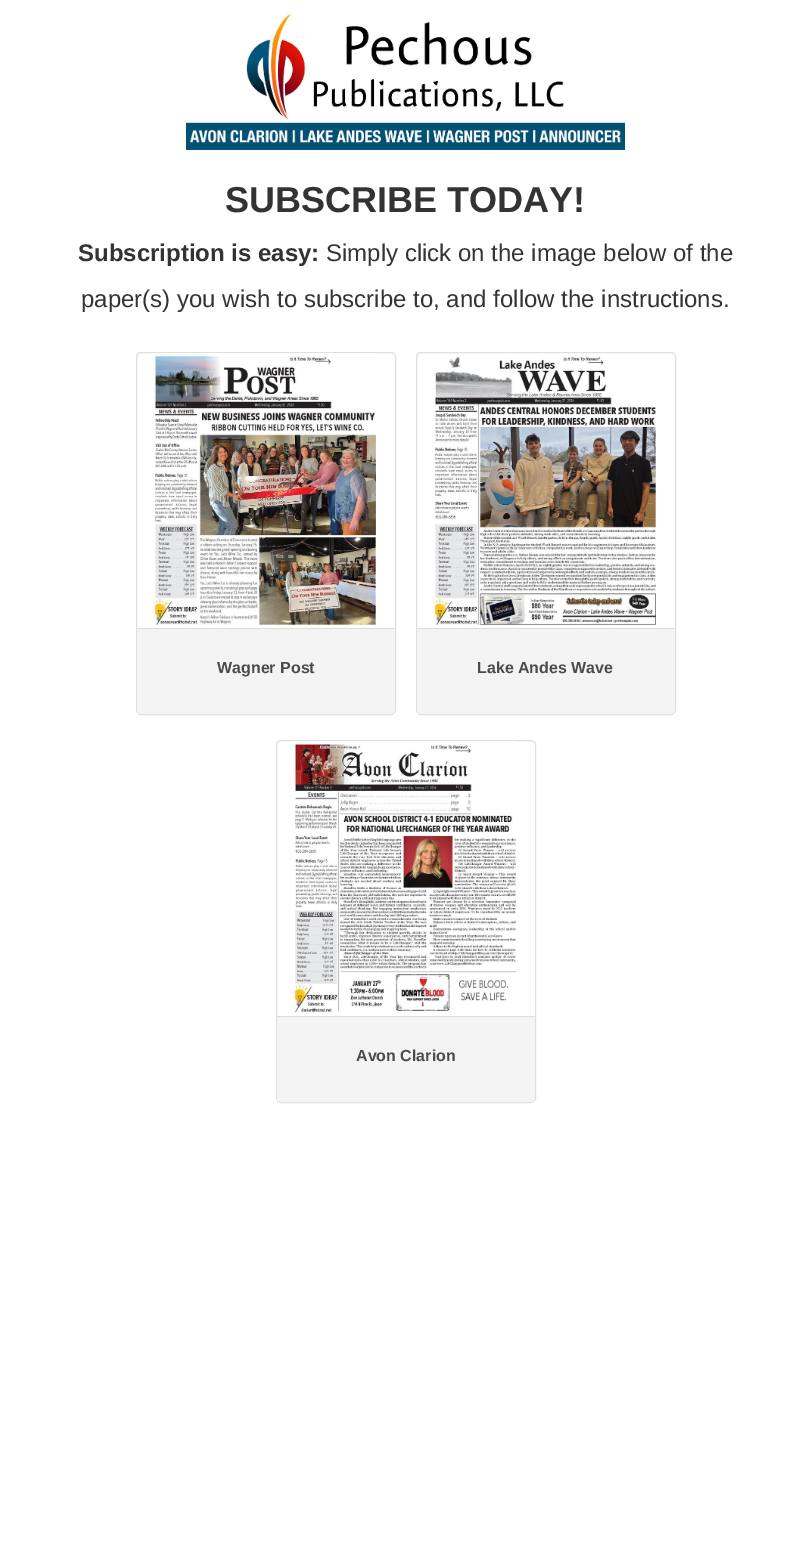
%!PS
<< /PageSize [811 1564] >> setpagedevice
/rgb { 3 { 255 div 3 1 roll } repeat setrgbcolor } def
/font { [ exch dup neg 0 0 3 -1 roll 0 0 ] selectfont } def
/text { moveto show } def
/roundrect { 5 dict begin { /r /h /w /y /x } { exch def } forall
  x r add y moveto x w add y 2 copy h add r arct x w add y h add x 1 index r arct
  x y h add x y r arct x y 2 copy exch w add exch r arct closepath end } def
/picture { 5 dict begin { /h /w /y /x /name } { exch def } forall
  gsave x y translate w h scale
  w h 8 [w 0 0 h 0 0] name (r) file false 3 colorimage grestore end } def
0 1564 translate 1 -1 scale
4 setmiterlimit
255 255 255 rgb
0 0 811 1564 rectfill
(img_01.rgb) 186 13 439 137 picture
223 223 223 rgb
136.5 352.5 259 362 4.5 roundrect stroke
(img_02.rgb) 152 353 225 273 picture
244 244 244 rgb
137 628 moveto 258 0 rlineto 0 82 rlineto 0 2 -2 4 -4 4 rcurveto -250 0 rlineto -2 0 -4 -2 -4 -4 rcurveto closepath fill
221 221 221 rgb
137 628 258 1 rectfill
223 223 223 rgb
416.5 352.5 259 362 4.5 roundrect stroke
(img_03.rgb) 432 356 224 269 picture
244 244 244 rgb
417 628 moveto 258 0 rlineto 0 82 rlineto 0 2 -2 4 -4 4 rcurveto -250 0 rlineto -2 0 -4 -2 -4 -4 rcurveto closepath fill
221 221 221 rgb
417 628 258 1 rectfill
223 223 223 rgb
276.5 740.5 259 362 4.5 roundrect stroke
(img_04.rgb) 292 741 224 273 picture
244 244 244 rgb
277 1016 moveto 258 0 rlineto 0 82 rlineto 0 2 -2 4 -4 4 rcurveto -250 0 rlineto -2 0 -4 -2 -4 -4 rcurveto closepath fill
221 221 221 rgb
277 1016 258 1 rectfill
/LiberationSans-Bold 36 font
51 51 51 rgb
(SUBSCRIBE TODAY!) 225 212 text
/LiberationSans-Bold 24 font
(Subscription is easy:) 78 261 text
/LiberationSans-Regular 24 font
(Simply click on the image below of the) 326 261 text
(paper\(s\) you wish to subscribe to, and follow the instructions.) 81 307 text
/LiberationSans-Bold 16 font
75 75 75 rgb
(Wagner Post) 217 673 text
(Lake Andes Wave) 477 673 text
(Avon Clarion) 356 1061 text
showpage
